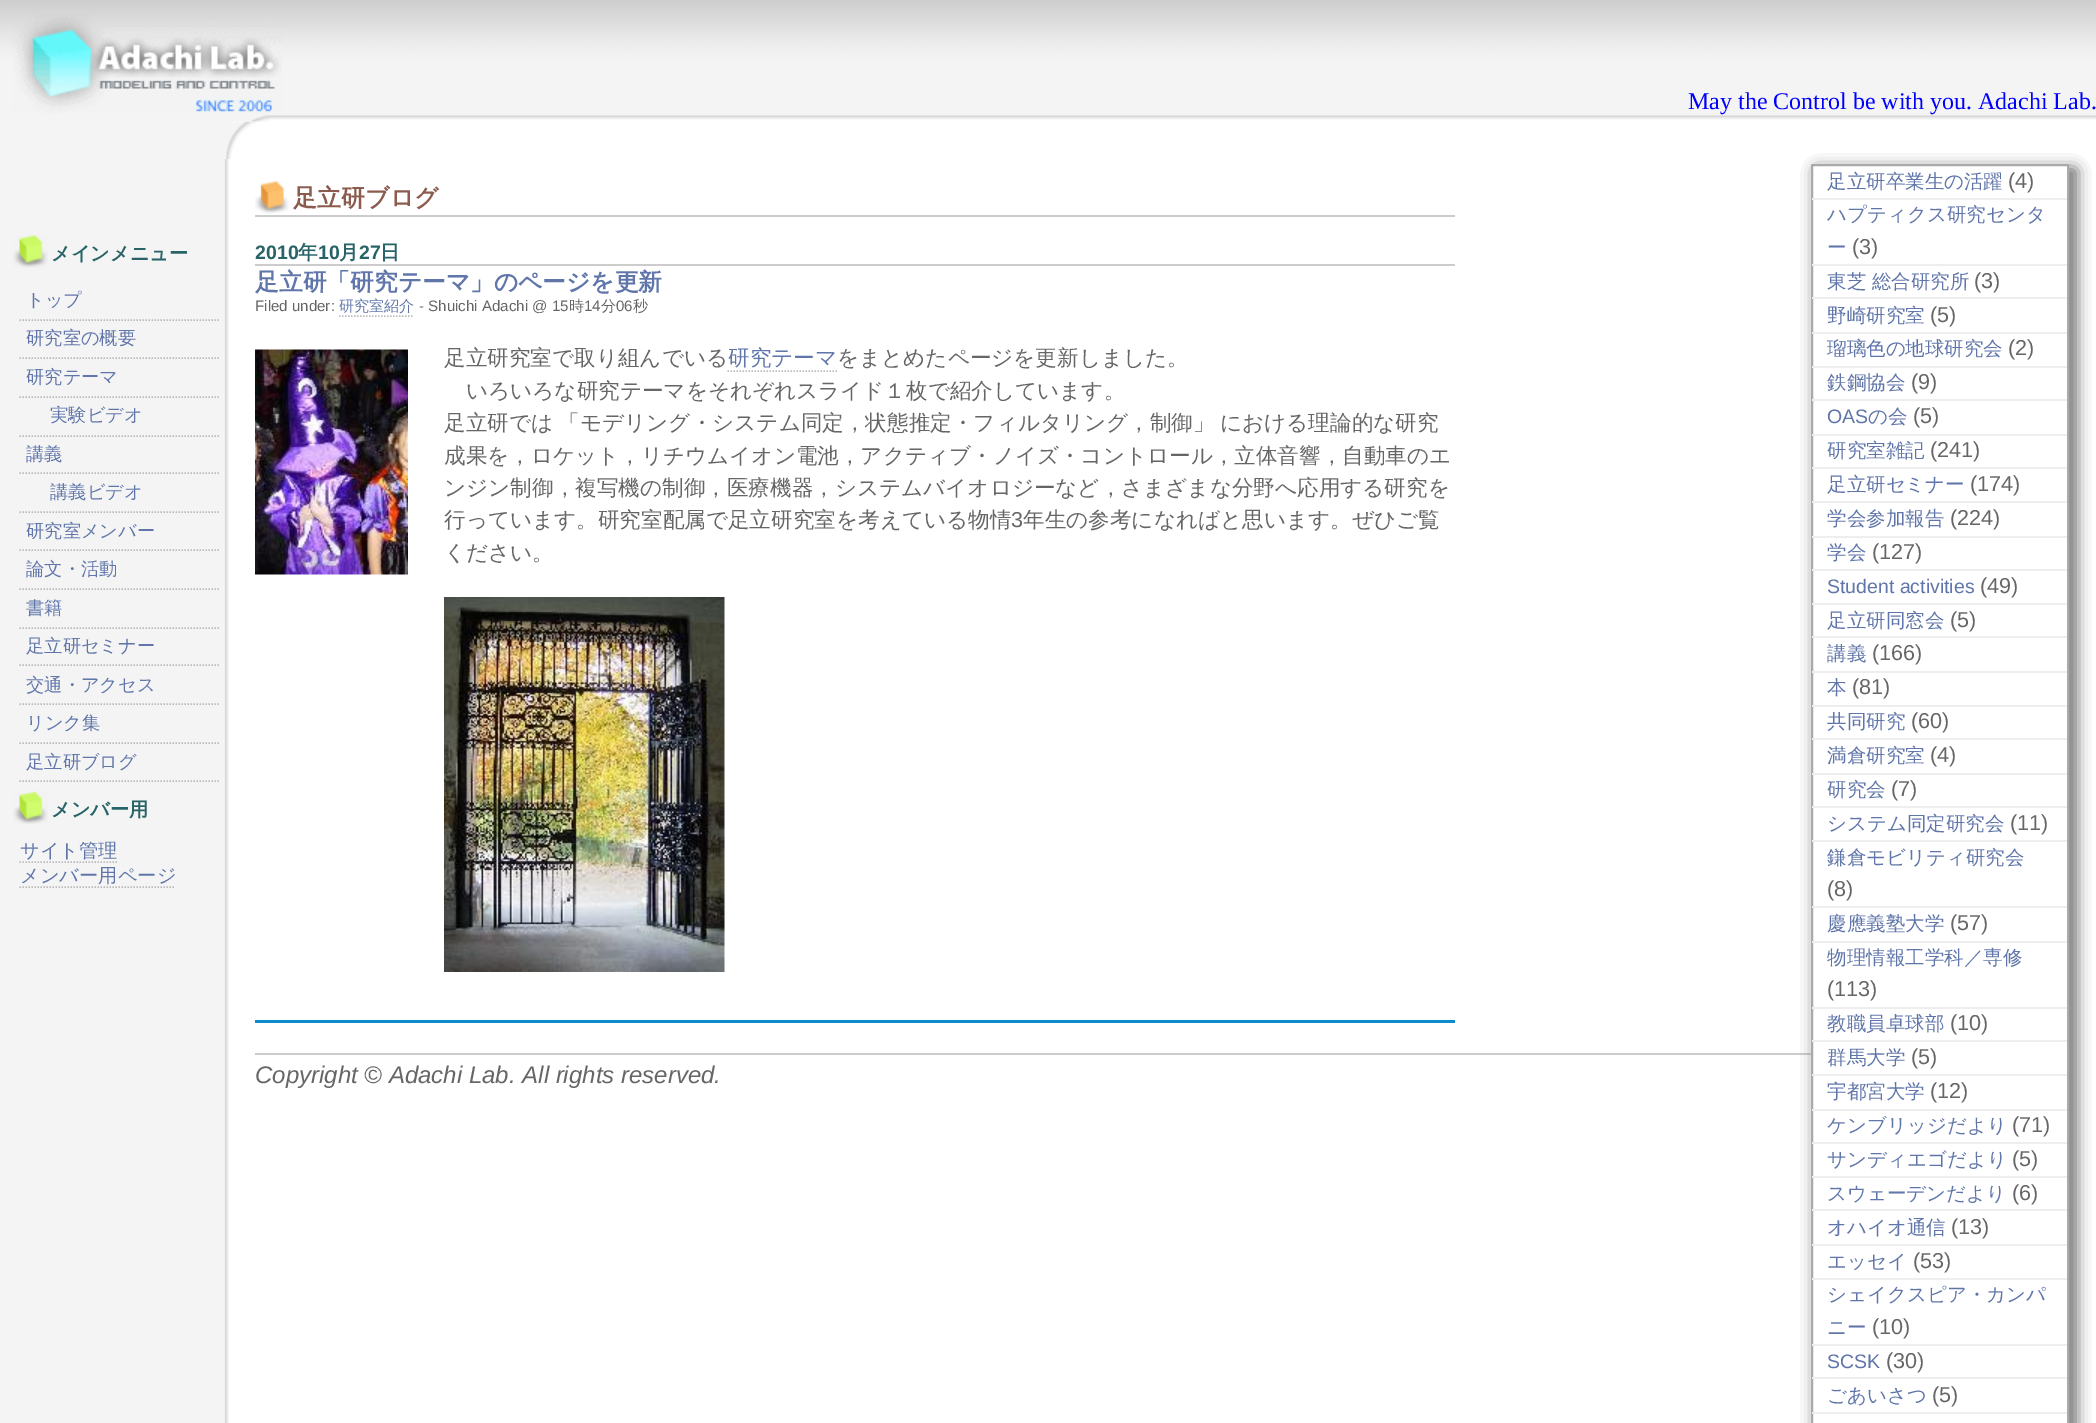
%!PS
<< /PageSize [2096 1423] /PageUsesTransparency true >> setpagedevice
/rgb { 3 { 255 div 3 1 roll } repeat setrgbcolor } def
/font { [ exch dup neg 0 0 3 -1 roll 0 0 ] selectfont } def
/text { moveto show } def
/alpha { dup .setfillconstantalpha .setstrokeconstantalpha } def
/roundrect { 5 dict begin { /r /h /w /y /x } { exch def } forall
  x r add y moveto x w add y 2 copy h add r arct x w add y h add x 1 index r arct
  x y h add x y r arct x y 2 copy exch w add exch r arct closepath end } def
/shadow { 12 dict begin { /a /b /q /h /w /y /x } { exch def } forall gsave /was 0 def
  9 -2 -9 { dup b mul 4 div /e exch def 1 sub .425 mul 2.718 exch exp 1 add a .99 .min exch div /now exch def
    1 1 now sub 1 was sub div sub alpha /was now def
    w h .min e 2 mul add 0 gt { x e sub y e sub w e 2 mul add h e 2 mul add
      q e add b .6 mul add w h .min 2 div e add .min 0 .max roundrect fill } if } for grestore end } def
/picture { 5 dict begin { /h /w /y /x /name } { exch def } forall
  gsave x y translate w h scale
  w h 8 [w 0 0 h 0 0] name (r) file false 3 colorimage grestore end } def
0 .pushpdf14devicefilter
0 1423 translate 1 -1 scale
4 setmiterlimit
255 255 255 rgb
0 0 2096 1423 rectfill
(img_01.rgb) 0 121 229 1302 picture
(img_05.rgb) 224 121 32 38 picture
(img_02.rgb) 0 0 2096 122 picture
(img_03.rgb) 0 115 270 7 picture
(img_04.rgb) 12 14 270 100 picture
(img_06.rgb) 13 235 35 33 picture
187 187 187 rgb
1.5 setlinewidth
[1.5 1.5] 0 setdash
19.5 320 moveto 199.5 0 rlineto stroke
19.5 358 moveto 199.5 0 rlineto stroke
19.5 397 moveto 199.5 0 rlineto stroke
19.5 436 moveto 199.5 0 rlineto stroke
19.5 473 moveto 199.5 0 rlineto stroke
19.5 512 moveto 199.5 0 rlineto stroke
19.5 550 moveto 199.5 0 rlineto stroke
19.5 589 moveto 199.5 0 rlineto stroke
19.5 628 moveto 199.5 0 rlineto stroke
19.5 665 moveto 199.5 0 rlineto stroke
19.5 704 moveto 199.5 0 rlineto stroke
19.5 743 moveto 199.5 0 rlineto stroke
19.5 781 moveto 199.5 0 rlineto stroke
(img_07.rgb) 13 791 35 33 picture
19.5 862 moveto 97.5 0 rlineto stroke
19.5 887 moveto 156 0 rlineto stroke
(img_08.rgb) 255 181 34 33 picture
204 204 204 rgb
255 215 1200 2 rectfill
255 264 1200 2 rectfill
187 187 187 rgb
339 316 moveto 75 0 rlineto stroke
(img_09.rgb) 255 349 153 226 picture
727.5 371 moveto 109.5 0 rlineto stroke
(img_10.rgb) 444 597 281 375 picture
12 140 205 rgb
255 1020 1200 3 rectfill
204 204 204 rgb
255 1053 1556 2 rectfill
136 136 136 rgb
1817 170 258 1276 0 7.5 1 shadow
1817 170 258 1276 0 7.5 1 shadow
255 255 255 rgb
1812 165 moveto 256 0 rlineto 0 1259 rlineto -256 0 rlineto closepath gsave fill grestore
170 170 170 rgb
2 setlinewidth
[] 0 setdash
stroke
238 238 238 rgb
1812 198 255 2 rectfill
1812 264 255 2 rectfill
1812 297 255 2 rectfill
1812 332 255 2 rectfill
1812 366 255 2 rectfill
1812 399 255 2 rectfill
1812 434 255 2 rectfill
1812 467 255 2 rectfill
1812 501 255 2 rectfill
1812 536 255 2 rectfill
1812 569 255 2 rectfill
1812 603 255 2 rectfill
1812 636 255 2 rectfill
1812 671 255 2 rectfill
1812 705 255 2 rectfill
1812 738 255 2 rectfill
1812 773 255 2 rectfill
1812 806 255 2 rectfill
1812 840 255 2 rectfill
1812 906 255 2 rectfill
1812 941 255 2 rectfill
1812 1007 255 2 rectfill
1812 1040 255 2 rectfill
1812 1074 255 2 rectfill
1812 1109 255 2 rectfill
1812 1142 255 2 rectfill
1812 1176 255 2 rectfill
1812 1209 255 2 rectfill
1812 1244 255 2 rectfill
1812 1278 255 2 rectfill
1812 1344 255 2 rectfill
1812 1377 255 2 rectfill
1812 1412 255 2 rectfill
/LiberationSerif-Regular 24 font
0 0 255 rgb
(May the Control be with you. Adachi Lab.) 1688 109 text
/WenQuanYiZenHei-Bold 19.25 font
40 99 103 rgb
(メインメニュー) 51 260 text
/WenQuanYiZenHei-Medium 18.25 font
96 117 170 rgb
(トップ) 26 306 text
(研究室の概要) 26 344 text
(研究テーマ) 26 383 text
(実験ビデオ) 50 421 text
(講義) 26 460 text
(講義ビデオ) 50 498 text
(研究室メンバー) 26 537 text
(論文・活動) 26 575 text
(書籍) 26 614 text
(足立研セミナー) 26 652 text
(交通・アクセス) 26 691 text
(リンク集) 26 729 text
(足立研ブログ) 26 768 text
/WenQuanYiZenHei-Bold 19.25 font
40 99 103 rgb
(メンバー用) 51 816 text
/WenQuanYiZenHei-Medium 19.25 font
96 117 170 rgb
(サイト管理) 20 857 text
(メンバー用ページ) 20 882 text
/WenQuanYiZenHei-Bold 24 font
139 91 78 rgb
(足立研ブログ) 293 206 text
/LiberationSans-Bold 19.5 font
40 99 103 rgb
(2010) 255 259 text
/WenQuanYiZenHei-Bold 19.5 font
(年) 298 259 text
/LiberationSans-Bold 19.5 font
(10) 318 259 text
/WenQuanYiZenHei-Bold 19.5 font
(月) 339 259 text
/LiberationSans-Bold 19.5 font
(27) 359 259 text
/WenQuanYiZenHei-Bold 19.5 font
(日) 380 259 text
/WenQuanYiZenHei-Bold 23.75 font
96 117 170 rgb
(足立研「研究テーマ」のページを更新) 255 290 text
/LiberationSans-Regular 15.1 font
102 102 102 rgb
(Filed under:) 255 311 text
/WenQuanYiZenHei-Medium 15.1 font
96 117 170 rgb
(研究室紹介) 339 311 text
/LiberationSans-Regular 15.1 font
102 102 102 rgb
(- Shuichi Adachi @ 15) 419 311 text
/WenQuanYiZenHei-Medium 15.1 font
(時) 569 311 text
/LiberationSans-Regular 15.1 font
(14) 584 311 text
/WenQuanYiZenHei-Medium 15.1 font
(分) 601 311 text
/LiberationSans-Regular 15.1 font
(06) 616 311 text
/WenQuanYiZenHei-Medium 15.1 font
(秒) 633 311 text
/WenQuanYiZenHei-Medium 21.6 font
(足立研究室で取り組んでいる) 444 365 text
96 117 170 rgb
(研究テーマ) 728 365 text
102 102 102 rgb
(をまとめたページを更新しました。) 837 365 text
(いろいろな研究テーマをそれぞれスライド１枚で紹介しています。) 466 398 text
444 430 moveto -1 0 32 (足立研では 「モデリング・システム同定，状態推定・フィルタリング，制御」 における理論的な研究) widthshow
(成果を，ロケット，リチウムイオン電池，アクティブ・ノイズ・コントロール，立体音響，自動車のエ) 444 463 text
(ンジン制御，複写機の制御，医療機器，システムバイオロジーなど，さまざまな分野へ応用する研究を) 444 495 text
(行っています。研究室配属で足立研究室を考えている物情) 444 527 text
/LiberationSans-Regular 21.6 font
(3) 1011 527 text
/WenQuanYiZenHei-Medium 21.6 font
(年生の参考になればと思います。ぜひご覧) 1023 527 text
(ください。) 444 560 text
/WenQuanYiZenHei-Medium 19.5 font
96 117 170 rgb
(足立研卒業生の活躍) 1827 188 text
/LiberationSans-Regular 21.6 font
102 102 102 rgb
(\(4\)) 2008 188 text
/WenQuanYiZenHei-Medium 19.5 font
96 117 170 rgb
(ハプティクス研究センタ) 1827 221 text
(ー) 1827 254 text
/LiberationSans-Regular 21.6 font
102 102 102 rgb
(\(3\)) 1852 254 text
/WenQuanYiZenHei-Medium 19.5 font
96 117 170 rgb
(東芝 総合研究所) 1827 288 text
/LiberationSans-Regular 21.6 font
102 102 102 rgb
(\(3\)) 1974 288 text
/WenQuanYiZenHei-Medium 19.5 font
96 117 170 rgb
(野崎研究室) 1827 322 text
/LiberationSans-Regular 21.6 font
102 102 102 rgb
(\(5\)) 1930 322 text
/WenQuanYiZenHei-Medium 19.5 font
96 117 170 rgb
(瑠璃色の地球研究会) 1827 355 text
/LiberationSans-Regular 21.6 font
102 102 102 rgb
(\(2\)) 2008 355 text
/WenQuanYiZenHei-Medium 19.5 font
96 117 170 rgb
(鉄鋼協会) 1827 389 text
/LiberationSans-Regular 21.6 font
102 102 102 rgb
(\(9\)) 1911 389 text
/LiberationSans-Regular 19.5 font
96 117 170 rgb
(OAS) 1827 423 text
/WenQuanYiZenHei-Medium 19.5 font
(の会) 1868 423 text
/LiberationSans-Regular 21.6 font
102 102 102 rgb
(\(5\)) 1913 423 text
/WenQuanYiZenHei-Medium 19.5 font
96 117 170 rgb
(研究室雑記) 1827 457 text
/LiberationSans-Regular 21.6 font
102 102 102 rgb
(\(241\)) 1930 457 text
/WenQuanYiZenHei-Medium 19.5 font
96 117 170 rgb
(足立研セミナー) 1827 491 text
/LiberationSans-Regular 21.6 font
102 102 102 rgb
(\(174\)) 1970 491 text
/WenQuanYiZenHei-Medium 19.5 font
96 117 170 rgb
(学会参加報告) 1827 525 text
/LiberationSans-Regular 21.6 font
102 102 102 rgb
(\(224\)) 1950 525 text
/WenQuanYiZenHei-Medium 19.5 font
96 117 170 rgb
(学会) 1827 559 text
/LiberationSans-Regular 21.6 font
102 102 102 rgb
(\(127\)) 1872 559 text
/LiberationSans-Regular 19.5 font
96 117 170 rgb
(Student activities) 1827 593 text
/LiberationSans-Regular 21.6 font
102 102 102 rgb
(\(49\)) 1980 593 text
/WenQuanYiZenHei-Medium 19.5 font
96 117 170 rgb
(足立研同窓会) 1827 627 text
/LiberationSans-Regular 21.6 font
102 102 102 rgb
(\(5\)) 1950 627 text
/WenQuanYiZenHei-Medium 19.5 font
96 117 170 rgb
(講義) 1827 660 text
/LiberationSans-Regular 21.6 font
102 102 102 rgb
(\(166\)) 1872 660 text
/WenQuanYiZenHei-Medium 19.5 font
96 117 170 rgb
(本) 1827 694 text
/LiberationSans-Regular 21.6 font
102 102 102 rgb
(\(81\)) 1852 694 text
/WenQuanYiZenHei-Medium 19.5 font
96 117 170 rgb
(共同研究) 1827 728 text
/LiberationSans-Regular 21.6 font
102 102 102 rgb
(\(60\)) 1911 728 text
/WenQuanYiZenHei-Medium 19.5 font
96 117 170 rgb
(満倉研究室) 1827 762 text
/LiberationSans-Regular 21.6 font
102 102 102 rgb
(\(4\)) 1930 762 text
/WenQuanYiZenHei-Medium 19.5 font
96 117 170 rgb
(研究会) 1827 796 text
/LiberationSans-Regular 21.6 font
102 102 102 rgb
(\(7\)) 1891 796 text
/WenQuanYiZenHei-Medium 19.5 font
96 117 170 rgb
(システム同定研究会) 1827 830 text
/LiberationSans-Regular 21.6 font
102 102 102 rgb
(\(11\)) 2010 830 text
/WenQuanYiZenHei-Medium 19.5 font
96 117 170 rgb
(鎌倉モビリティ研究会) 1827 864 text
/LiberationSans-Regular 21.6 font
102 102 102 rgb
(\(8\)) 1827 896 text
/WenQuanYiZenHei-Medium 19.5 font
96 117 170 rgb
(慶應義塾大学) 1827 930 text
/LiberationSans-Regular 21.6 font
102 102 102 rgb
(\(57\)) 1950 930 text
/WenQuanYiZenHei-Medium 19.5 font
96 117 170 rgb
(物理情報工学科／専修) 1827 964 text
/LiberationSans-Regular 21.6 font
102 102 102 rgb
(\(113\)) 1827 996 text
/WenQuanYiZenHei-Medium 19.5 font
96 117 170 rgb
(教職員卓球部) 1827 1030 text
/LiberationSans-Regular 21.6 font
102 102 102 rgb
(\(10\)) 1950 1030 text
/WenQuanYiZenHei-Medium 19.5 font
96 117 170 rgb
(群馬大学) 1827 1064 text
/LiberationSans-Regular 21.6 font
102 102 102 rgb
(\(5\)) 1911 1064 text
/WenQuanYiZenHei-Medium 19.5 font
96 117 170 rgb
(宇都宮大学) 1827 1098 text
/LiberationSans-Regular 21.6 font
102 102 102 rgb
(\(12\)) 1930 1098 text
/WenQuanYiZenHei-Medium 19.5 font
96 117 170 rgb
(ケンブリッジだより) 1827 1132 text
/LiberationSans-Regular 21.6 font
102 102 102 rgb
(\(71\)) 2012 1132 text
/WenQuanYiZenHei-Medium 19.5 font
96 117 170 rgb
(サンディエゴだより) 1827 1166 text
/LiberationSans-Regular 21.6 font
102 102 102 rgb
(\(5\)) 2012 1166 text
/WenQuanYiZenHei-Medium 19.5 font
96 117 170 rgb
(スウェーデンだより) 1827 1200 text
/LiberationSans-Regular 21.6 font
102 102 102 rgb
(\(6\)) 2012 1200 text
/WenQuanYiZenHei-Medium 19.5 font
96 117 170 rgb
(オハイオ通信) 1827 1234 text
/LiberationSans-Regular 21.6 font
102 102 102 rgb
(\(13\)) 1951 1234 text
/WenQuanYiZenHei-Medium 19.5 font
96 117 170 rgb
(エッセイ) 1827 1268 text
/LiberationSans-Regular 21.6 font
102 102 102 rgb
(\(53\)) 1913 1268 text
/WenQuanYiZenHei-Medium 19.5 font
96 117 170 rgb
(シェイクスピア・カンパ) 1827 1301 text
(ニー) 1827 1334 text
/LiberationSans-Regular 21.6 font
102 102 102 rgb
(\(10\)) 1872 1334 text
/LiberationSans-Regular 19.5 font
96 117 170 rgb
(SCSK) 1827 1368 text
/LiberationSans-Regular 21.6 font
102 102 102 rgb
(\(30\)) 1886 1368 text
/WenQuanYiZenHei-Medium 19.5 font
96 117 170 rgb
(ごあいさつ) 1827 1402 text
/LiberationSans-Regular 21.6 font
102 102 102 rgb
(\(5\)) 1932 1402 text
/LiberationSans-Italic 24 font
(Copyright © Adachi Lab. All rights reserved.) 255 1083 text
.poppdf14devicefilter showpage
